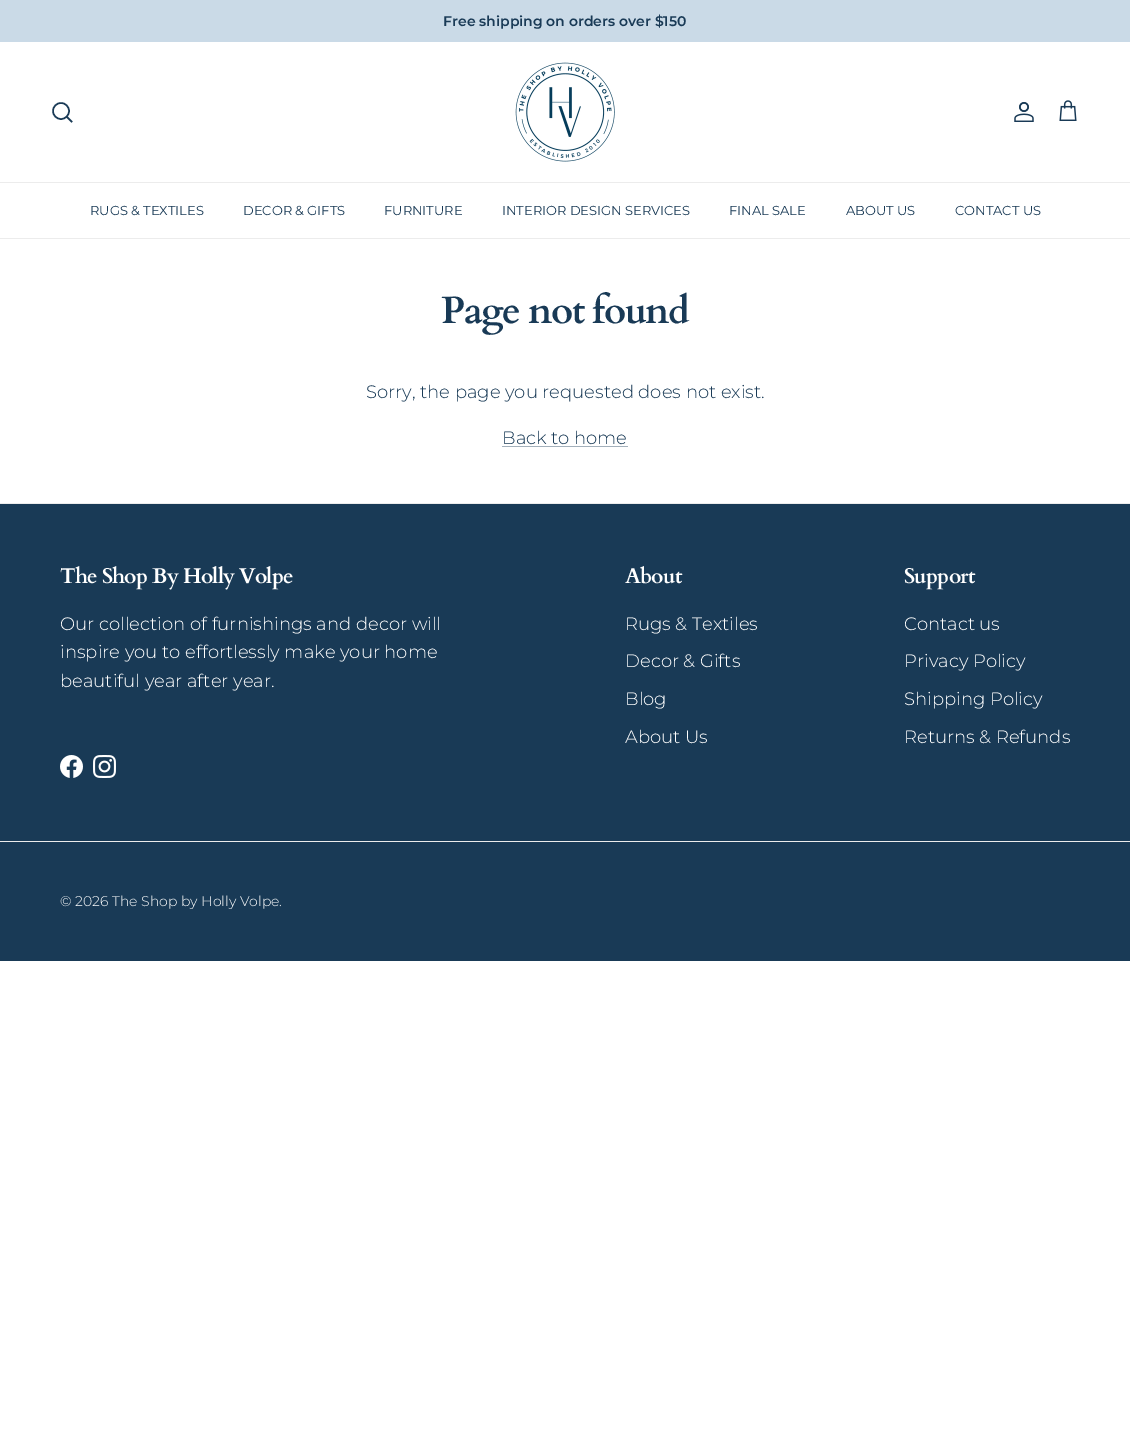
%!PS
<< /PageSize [1130 1433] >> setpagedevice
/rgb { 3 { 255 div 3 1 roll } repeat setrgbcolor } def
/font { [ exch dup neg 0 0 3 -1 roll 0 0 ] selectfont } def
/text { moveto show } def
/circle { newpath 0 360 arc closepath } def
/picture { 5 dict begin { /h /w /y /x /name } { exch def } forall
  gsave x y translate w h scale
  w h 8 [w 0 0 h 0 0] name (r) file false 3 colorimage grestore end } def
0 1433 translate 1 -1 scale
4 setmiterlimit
255 255 255 rgb
0 0 1130 1433 rectfill
202 218 231 rgb
0 0 1130 42 rectfill
236 236 236 rgb
0 182 1130 1 rectfill
25 58 86 rgb
1.5 setlinewidth
61 111 8 circle stroke
2 setlinecap
67 117 moveto 4.5 4.5 rlineto stroke
(img_01.rgb) 515 62 100 100 picture
(img_02.rgb) 1014 102 20 20 picture
(img_03.rgb) 1059 100 18 21 picture
236 236 236 rgb
0 238 1130 1 rectfill
163 176 187 rgb
502 446 126 1 rectfill
25 58 86 rgb
0 504 1130 457 rectfill
236 236 236 rgb
0 503 1130 1 rectfill
(img_04.rgb) 60 755 23 23 picture
(img_05.rgb) 93 755 23 23 picture
0 841 1130 1 rectfill
/Montserrat-SemiBold 14 font
25 58 86 rgb
(Free shipping on orders over $150) 443 26 text
/Montserrat-Thin 13 font
(RUGS & TEXTILES) 90 215 text
(DECOR & GIFTS) 243 215 text
(FURNITURE) 384 215 text
(INTERIOR DESIGN SERVICES) 502 215 text
(FINAL SALE) 729 215 text
(ABOUT US) 846 215 text
(CONTACT US) 955 215 text
/Cardo-Bold 38 font
441 323 moveto -1.5 0 (Page not found) ashow
/Montserrat-Light 18 font
(Sorry, the page you requested does not exist.) 366 398 text
(Back to home) 502 444 text
/Cardo-Bold 21.25 font
255 255 255 rgb
60 583 moveto -0.85 0 (The Shop By Holly Volpe) ashow
/Montserrat-Light 18 font
(Our collection of furnishings and decor will) 60 630 text
(inspire you to effortlessly make your home) 60 658 text
(beautiful year after year.) 60 687 text
/Cardo-Bold 21.25 font
625 583 moveto -0.85 0 (About) ashow
/Montserrat-Light 18 font
(Rugs & Textiles) 625 630 text
(Decor & Gifts) 625 667 text
(Blog) 625 705 text
(About Us) 625 743 text
/Cardo-Bold 21.25 font
904 583 moveto -0.85 0 (Support) ashow
/Montserrat-Light 18 font
(Contact us) 904 630 text
(Privacy Policy) 904 667 text
(Shipping Policy) 904 705 text
(Returns & Refunds) 904 743 text
/Montserrat-Light 14 font
(© 2026 The Shop by Holly Volpe.) 60 906 text
showpage
